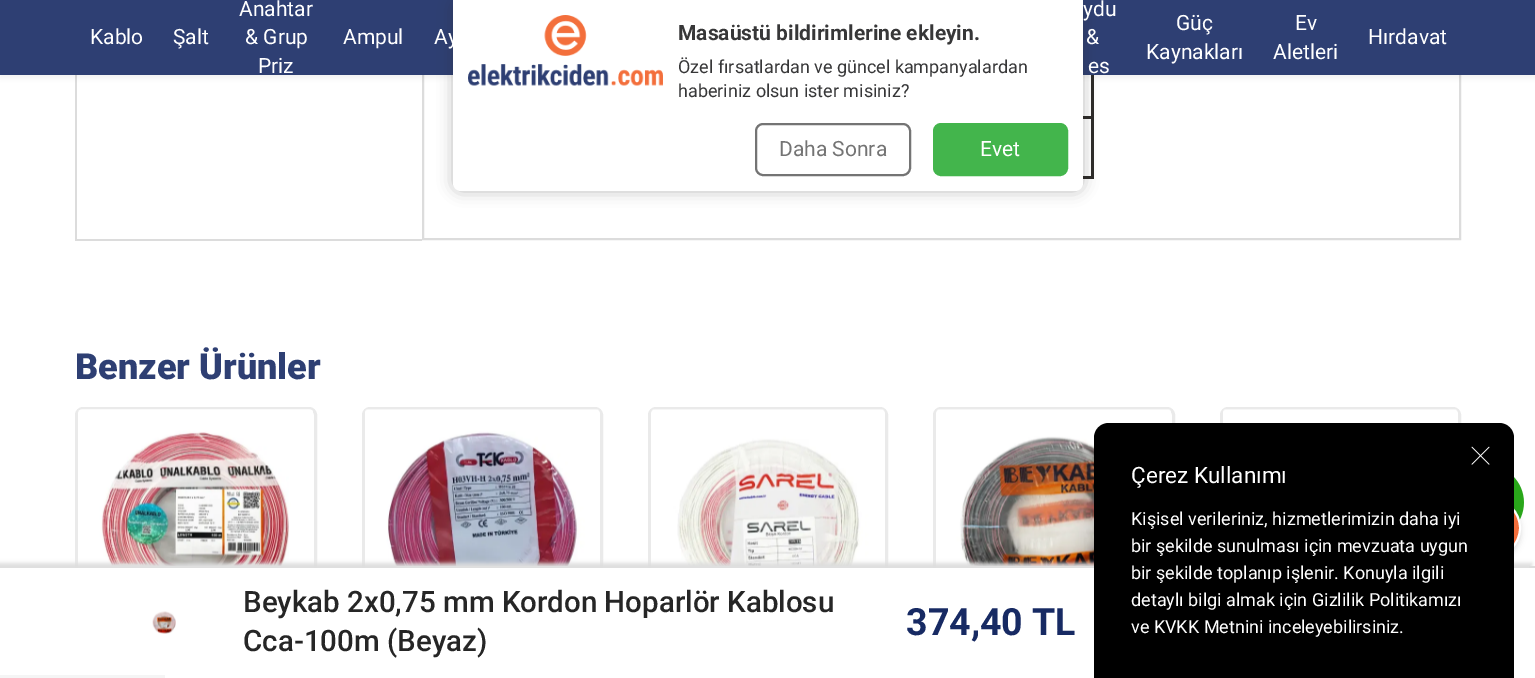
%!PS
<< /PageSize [1535 678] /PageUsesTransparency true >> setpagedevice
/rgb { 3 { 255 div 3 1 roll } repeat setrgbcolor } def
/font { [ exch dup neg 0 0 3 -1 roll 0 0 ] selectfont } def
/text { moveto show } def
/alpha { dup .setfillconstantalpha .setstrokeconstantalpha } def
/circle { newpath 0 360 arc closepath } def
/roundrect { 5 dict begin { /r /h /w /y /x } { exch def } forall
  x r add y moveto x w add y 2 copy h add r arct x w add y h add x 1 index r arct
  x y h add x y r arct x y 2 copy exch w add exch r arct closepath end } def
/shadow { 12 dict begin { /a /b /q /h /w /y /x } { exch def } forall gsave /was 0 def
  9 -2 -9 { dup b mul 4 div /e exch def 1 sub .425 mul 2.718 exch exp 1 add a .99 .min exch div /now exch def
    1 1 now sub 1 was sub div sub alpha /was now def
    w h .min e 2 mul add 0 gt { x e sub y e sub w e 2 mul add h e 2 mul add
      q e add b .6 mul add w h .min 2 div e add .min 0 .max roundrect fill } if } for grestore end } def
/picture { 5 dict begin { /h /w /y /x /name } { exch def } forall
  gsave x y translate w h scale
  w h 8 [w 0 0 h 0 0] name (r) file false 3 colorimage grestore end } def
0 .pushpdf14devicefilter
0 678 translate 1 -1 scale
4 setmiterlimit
255 255 255 rgb
0 0 1535 678 rectfill
220 220 220 rgb
75 239 347 2 rectfill
75 75 2 165 rectfill
2 setlinewidth
423 -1 1037 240 rectstroke
44 42 40 rgb
1091 75 3 104 rectfill
0 0 0 rgb
0 3 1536 75 0 3 0.06 shadow
46 63 115 rgb
0 0 1535 75 rectfill
(img_01.rgb) 1514 477 10 44 picture
234 234 234 rgb
3 setlinewidth
1221.5 408.5 238 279 6.5 roundrect stroke
0 0 0 rgb
1461 501 60 60 30 3 0.13 shadow
243 111 60 rgb
1491 528 29 circle gsave fill grestore
255 255 255 rgb
2 setlinewidth
stroke
44 42 40 rgb
1083 116 8 3 rectfill
1083 176 8 3 rectfill
40 40 40 rgb
453 0 630 191 8 7.5 0.3 shadow
255 255 255 rgb
453 0 moveto 630 0 rlineto 0 183 rlineto 0 4.5 -3.5 8 -8 8 rcurveto -614 0 rlineto -4.5 0 -8 -3.5 -8 -8 rcurveto closepath fill
(img_02.rgb) 468 15 195 71 picture
116 116 116 rgb
756 124 154 51 7 roundrect stroke
67 181 76 rgb
934 124 133 51 7 roundrect gsave fill grestore
stroke
234 234 234 rgb
3 setlinewidth
76.5 408.5 239 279 6.5 roundrect stroke
(img_03.rgb) 78 409 235 157 picture
363.5 408.5 238 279 6.5 roundrect stroke
(img_04.rgb) 365 409 235 157 picture
649.5 408.5 237 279 6.5 roundrect stroke
(img_05.rgb) 651 409 234 157 picture
934.5 408.5 239 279 6.5 roundrect stroke
(img_06.rgb) 936 409 235 157 picture
(img_07.rgb) 1223 409 235 14 picture
221 221 221 rgb
-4 563 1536 112 0 2 1 shadow
255 255 255 rgb
0 568 1535 110 rectfill
221 221 221 rgb
1529 566 6 2 rectfill
(img_08.rgb) 152 611 24 23 picture
0 0 0 rgb
1109 423 moveto 390 0 rlineto 8.5 0 15 6.5 15 15 rcurveto 0 240 rlineto -420 0 rlineto 0 -240 rlineto 0 -8.5 6.5 -15 15 -15 rcurveto closepath fill
(img_09.rgb) 1471 446 19 19 picture
245 245 245 rgb
0 675 165 3 rectfill
/Roboto-Regular 21 font
255 255 255 rgb
(Kablo) 90 44 text
(Şalt) 173 44 text
(Anahtar) 239 16 text
(& Grup) 245 44 text
(Priz) 258 73 text
(Ampul) 343 44 text
(Ay) 434 44 text
(ydu) 1083 16 text
(&) 1086 44 text
(es) 1088 73 text
(Güç) 1176 30 text
(Kaynakları) 1146 59 text
(Ev) 1295 30 text
(Aletleri) 1273 59 text
(Hırdavat) 1368 44 text
/Roboto-Bold 21 font
55 55 56 rgb
(Masaüstü bildirimlerine ekleyin.) 678 40 text
/Roboto-Regular 18 font
(Özel fırsatlardan ve güncel kampanyalardan) 678 73 text
(haberiniz olsun ister misiniz?) 678 97 text
/Roboto-Regular 21 font
116 116 116 rgb
(Daha Sonra) 779 156 text
255 255 255 rgb
(Evet) 980 156 text
/Roboto-Black 36 font
46 63 115 rgb
(Benzer Ürünler) 75 379 text
/Roboto-Medium 29.5 font
38 38 38 rgb
(Beykab 2x0,75 mm Kordon Hoparlör Kablosu) 243 612 text
(Cca-100m \(Beyaz\)) 243 651 text
/Roboto-Bold 37.5 font
23 42 99 rgb
(374,40 TL) 906 635 text
/Roboto-Regular 22.5 font
255 255 255 rgb
(Çerez Kullanımı) 1131 483 text
/Roboto-Regular 18 font
(Kişisel verileriniz, hizmetlerimizin daha iyi) 1131 525 text
(bir şekilde sunulması için mevzuata uygun) 1131 552 text
(bir şekilde toplanıp işlenir. Konuyla ilgili) 1131 579 text
(detaylı bilgi almak için Gizlilik Politikamızı) 1131 606 text
(ve KVKK Metnini inceleyebilirsiniz.) 1131 633 text
.poppdf14devicefilter showpage
